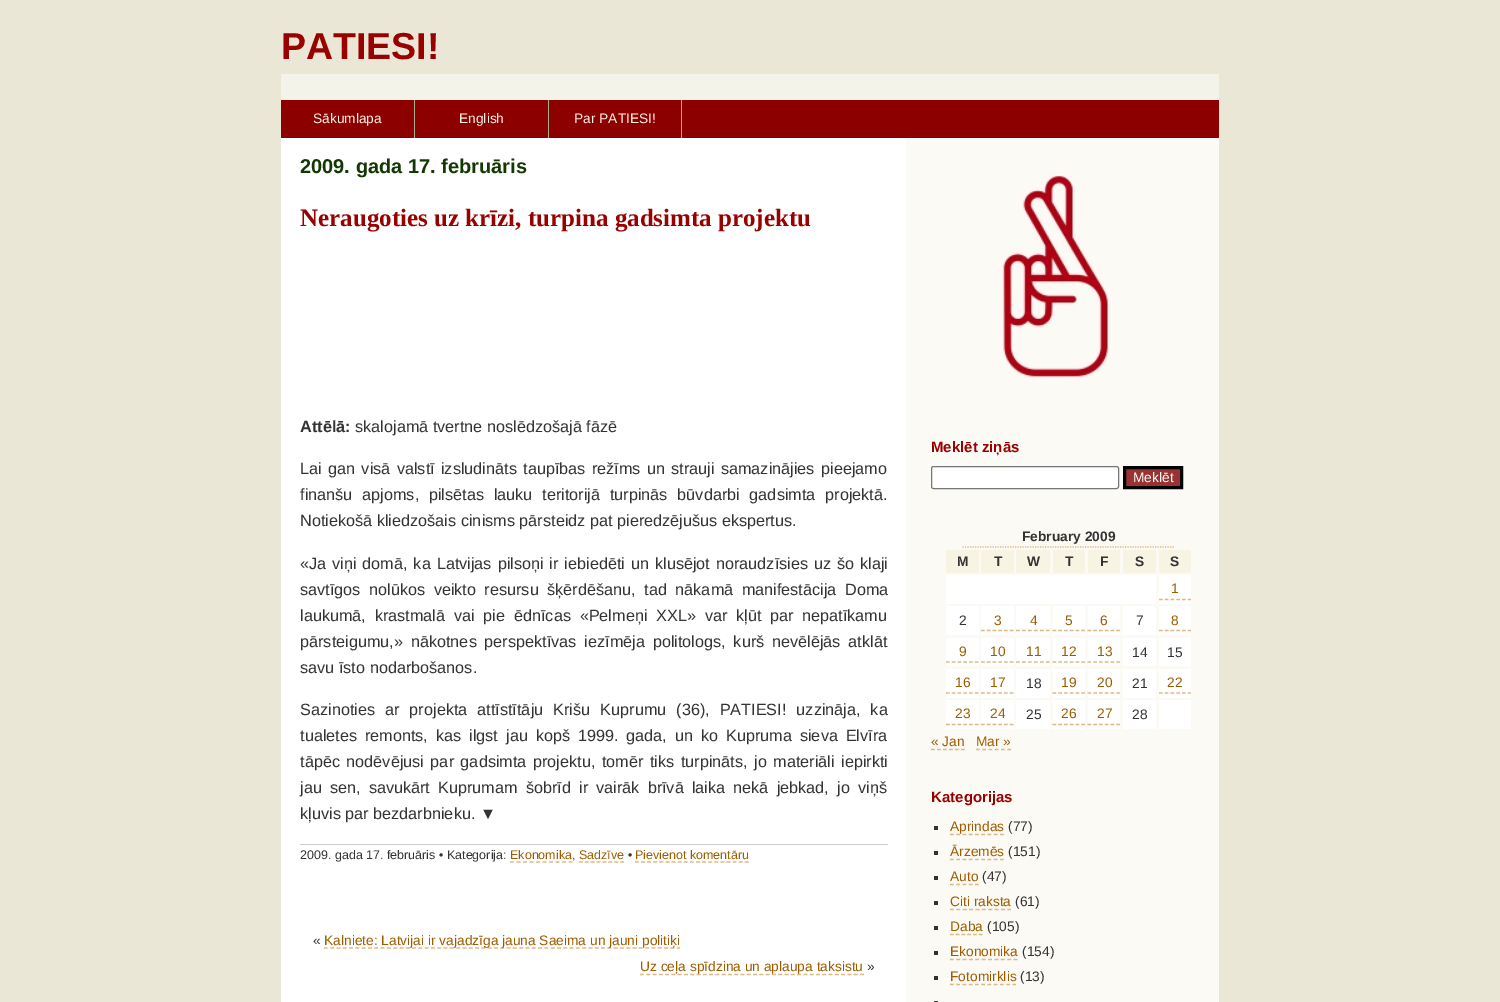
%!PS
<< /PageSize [1500 1002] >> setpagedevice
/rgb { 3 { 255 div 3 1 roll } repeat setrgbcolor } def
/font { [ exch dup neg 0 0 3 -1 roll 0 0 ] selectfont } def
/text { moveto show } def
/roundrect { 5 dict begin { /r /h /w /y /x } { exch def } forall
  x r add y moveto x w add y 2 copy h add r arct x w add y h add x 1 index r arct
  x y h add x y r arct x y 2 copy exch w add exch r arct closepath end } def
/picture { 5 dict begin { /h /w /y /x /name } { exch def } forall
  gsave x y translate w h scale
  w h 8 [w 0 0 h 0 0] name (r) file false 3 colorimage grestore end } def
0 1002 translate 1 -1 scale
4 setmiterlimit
234 231 214 rgb
0 0 1500 1002 rectfill
243 243 233 rgb
281 74 938 26 rectfill
140 0 0 rgb
281 100 938 38 rectfill
168 176 144 rgb
414 100 1 38 rectfill
548 100 1 38 rectfill
681 100 1 38 rectfill
251 250 245 rgb
906 138 313 864 rectfill
255 255 255 rgb
281 138 625 864 rectfill
204 204 204 rgb
300 844 588 1 rectfill
219 186 138 rgb
1.2 setlinewidth
[3.75 2.78] 0 setdash
510 862 moveto 62.5 0 rlineto stroke
[3.75 2.14] 0 setdash
579 862 moveto 45 0 rlineto stroke
[3.75 2.36] 0 setdash
635 862 moveto 114 0 rlineto stroke
[3.75 2.55] 0 setdash
324 948 moveto 356 0 rlineto stroke
[3.75 2.54] 0 setdash
640 974.5 moveto 224 0 rlineto stroke
(img_01.rgb) 1002 175 108 203 picture
255 255 255 rgb
931.5 466.5 187 22 2 roundrect gsave fill grestore
118 118 118 rgb
1 setlinewidth
[] 0 setdash
stroke
153 51 51 rgb
1124.5 467.5 moveto 57 0 rlineto 0 20 rlineto -57 0 rlineto closepath gsave fill grestore
0 0 0 rgb
3 setlinewidth
stroke
219 186 138 rgb
1.2 setlinewidth
[1.25 1.25] 0 setdash
962.5 547 moveto 212.5 0 rlineto stroke
247 244 228 rgb
946 550 33 23 rectfill
981 550 33 23 rectfill
1016 550 34 23 rectfill
1053 550 32 23 rectfill
1088 550 32 23 rectfill
1123 550 33 23 rectfill
1159 550 32 23 rectfill
255 255 255 rgb
946 575 210 29 rectfill
1159 575 32 29 rectfill
219 186 138 rgb
[3.75 2] 0 setdash
1159 599.5 moveto 32 0 rlineto stroke
255 255 255 rgb
946 606 33 29 rectfill
981 606 33 29 rectfill
219 186 138 rgb
981 630.5 moveto 33 0 rlineto stroke
255 255 255 rgb
1016 606 34 29 rectfill
219 186 138 rgb
[3.75 2.25] 0 setdash
1016 630.5 moveto 34 0 rlineto stroke
255 255 255 rgb
1053 606 32 29 rectfill
219 186 138 rgb
[3.75 2] 0 setdash
1052.5 630.5 moveto 32.5 0 rlineto stroke
255 255 255 rgb
1088 606 32 29 rectfill
219 186 138 rgb
1087.5 630.5 moveto 32.5 0 rlineto stroke
255 255 255 rgb
1123 606 33 29 rectfill
1159 606 32 29 rectfill
219 186 138 rgb
1159 630.5 moveto 32 0 rlineto stroke
255 255 255 rgb
946 638 33 28 rectfill
219 186 138 rgb
946 662 moveto 33 0 rlineto stroke
255 255 255 rgb
981 638 33 28 rectfill
219 186 138 rgb
981 662 moveto 33 0 rlineto stroke
255 255 255 rgb
1016 638 34 28 rectfill
219 186 138 rgb
[3.75 2.25] 0 setdash
1016 662 moveto 34 0 rlineto stroke
255 255 255 rgb
1053 638 32 28 rectfill
219 186 138 rgb
[3.75 2] 0 setdash
1052.5 662 moveto 32.5 0 rlineto stroke
255 255 255 rgb
1088 638 32 28 rectfill
219 186 138 rgb
1087.5 662 moveto 32.5 0 rlineto stroke
255 255 255 rgb
1123 638 33 28 rectfill
1159 638 32 28 rectfill
946 669 33 29 rectfill
219 186 138 rgb
946 693 moveto 33 0 rlineto stroke
255 255 255 rgb
981 669 33 29 rectfill
219 186 138 rgb
981 693 moveto 33 0 rlineto stroke
255 255 255 rgb
1016 669 34 29 rectfill
1053 669 32 29 rectfill
219 186 138 rgb
1052.5 693 moveto 32.5 0 rlineto stroke
255 255 255 rgb
1088 669 32 29 rectfill
219 186 138 rgb
1087.5 693 moveto 32.5 0 rlineto stroke
255 255 255 rgb
1123 669 33 29 rectfill
1159 669 32 29 rectfill
219 186 138 rgb
1159 693 moveto 32 0 rlineto stroke
255 255 255 rgb
946 700 33 29 rectfill
219 186 138 rgb
946 724.5 moveto 33 0 rlineto stroke
255 255 255 rgb
981 700 33 29 rectfill
219 186 138 rgb
981 724.5 moveto 33 0 rlineto stroke
255 255 255 rgb
1016 700 34 29 rectfill
1053 700 32 29 rectfill
219 186 138 rgb
1052.5 724.5 moveto 32.5 0 rlineto stroke
255 255 255 rgb
1088 700 32 29 rectfill
219 186 138 rgb
1087.5 724.5 moveto 32.5 0 rlineto stroke
255 255 255 rgb
1123 700 33 29 rectfill
1159 700 32 29 rectfill
219 186 138 rgb
[3.75 2.25] 0 setdash
931 749.5 moveto 34 0 rlineto stroke
[3.75 2.5] 0 setdash
976 749.5 moveto 35 0 rlineto stroke
51 51 51 rgb
934 826 4 4 rectfill
219 186 138 rgb
950 834.5 moveto 54 0 rlineto stroke
51 51 51 rgb
934 851 4 4 rectfill
219 186 138 rgb
950 859.5 moveto 54 0 rlineto stroke
51 51 51 rgb
934 876 4 4 rectfill
219 186 138 rgb
950 884.5 moveto 29 0 rlineto stroke
51 51 51 rgb
934 901 4 4 rectfill
219 186 138 rgb
[3.75 2.64] 0 setdash
950 909.5 moveto 61 0 rlineto stroke
51 51 51 rgb
934 926 4 4 rectfill
219 186 138 rgb
[3.75 2] 0 setdash
950 934.5 moveto 32.5 0 rlineto stroke
51 51 51 rgb
934 951 4 4 rectfill
219 186 138 rgb
[3.75 2.62] 0 setdash
950 959.5 moveto 67.5 0 rlineto stroke
51 51 51 rgb
934 976 4 4 rectfill
219 186 138 rgb
[3.75 2.5] 0 setdash
950 984.5 moveto 66 0 rlineto stroke
51 51 51 rgb
934 1001 4 1 rectfill
/LiberationSans-Bold 37.5 font
153 0 0 rgb
(PATIESI!) 281 59 text
/LiberationSans-Regular 13.75 font
248 242 229 rgb
(Sākumlapa) 313 123 text
(English) 459 123 text
(Par PATIESI!) 574 123 text
/LiberationSans-Bold 20 font
19 57 2 rgb
(2009. gada 17. februāris) 300 173 text
/LiberationSerif-Bold 25 font
153 0 0 rgb
(Neraugoties uz krīzi, turpina gadsimta projektu) 300 226 text
/LiberationSans-Bold 16.25 font
51 51 51 rgb
(Attēlā:) 300 432 text
/LiberationSans-Regular 16.25 font
(skalojamā tvertne noslēdzošajā fāzē) 355 432 text
300 474 moveto 1.8 0 32 (Lai gan visā valstī izsludināts taupības režīms un strauji samazinājies pieejamo) widthshow
300 500 moveto 5.25 0 32 (finanšu apjoms, pilsētas lauku teritorijā turpinās būvdarbi gadsimta projektā.) widthshow
(Notiekošā kliedzošais cinisms pārsteidz pat pieredzējušus ekspertus.) 300 526 text
300 569 moveto 1.4 0 32 («Ja viņi domā, ka Latvijas pilsoņi ir iebiedēti un klusējot noraudzīsies uz šo klaji) widthshow
300 595 moveto 4 0 32 (savtīgos nolūkos veikto resursu šķērdēšanu, tad nākamā manifestācija Doma) widthshow
300 621 moveto 4.25 0 32 (laukumā, krastmalā vai pie ēdnīcas «Pelmeņi XXL» var kļūt par nepatīkamu) widthshow
300 647 moveto 3.25 0 32 (pārsteigumu,» nākotnes perspektīvas iezīmēja politologs, kurš nevēlējās atklāt) widthshow
(savu īsto nodarbošanos.) 300 673 text
300 715 moveto 5.5 0 32 (Sazinoties ar projekta attīstītāju Krišu Kuprumu \(36\), PATIESI! uzzināja, ka) widthshow
300 741 moveto 3.4 0 32 (tualetes remonts, kas ilgst jau kopš 1999. gada, un ko Kupruma sieva Elvīra) widthshow
300 767 moveto 2 0 32 (tāpēc nodēvējusi par gadsimta projektu, tomēr tiks turpināts, jo materiāli iepirkti) widthshow
300 793 moveto 3.6 0 32 (jau sen, savukārt Kuprumam šobrīd ir vairāk brīvā laika nekā jebkad, jo viņš) widthshow
(kļuvis par bezdarbnieku. ▼) 300 819 text
/LiberationSans-Regular 12.5 font
(2009. gada 17. februāris • Kategorija:) 300 859 text
157 92 0 rgb
(Ekonomika) 510 859 text
(Sadzīve) 579 859 text
51 51 51 rgb
(•) 628 859 text
157 92 0 rgb
(Pievienot komentāru) 635 859 text
51 51 51 rgb
(,) 572 859 text
/LiberationSans-Regular 13.75 font
(«) 313 945 text
157 92 0 rgb
(Kalniete: Latvijai ir vajadzīga jauna Saeima un jauni politiķi) 324 945 text
(Uz ceļa spīdzina un aplaupa taksistu) 640 971 text
51 51 51 rgb
(») 867 971 text
/LiberationSans-Bold 15 font
153 0 0 rgb
(Meklēt ziņās) 931 452 text
/LiberationSans-Regular 13.75 font
255 255 255 rgb
(Meklēt) 1133 482 text
/LiberationSans-Bold 13.75 font
51 51 51 rgb
(February 2009) 1022 541 text
(M) 957 566 text
(T) 994 566 text
(W) 1027 566 text
(T) 1065 566 text
(F) 1100 566 text
(S) 1135 566 text
(S) 1170 566 text
/LiberationSans-Regular 13.75 font
157 92 0 rgb
(1) 1171 593 text
51 51 51 rgb
(2) 959 625 text
157 92 0 rgb
(3) 994 625 text
(4) 1030 625 text
(5) 1065 625 text
(6) 1100 625 text
51 51 51 rgb
(7) 1136 625 text
157 92 0 rgb
(8) 1171 625 text
(9) 959 656 text
(10) 990 656 text
(11) 1026 656 text
(12) 1061 656 text
(13) 1097 656 text
51 51 51 rgb
(14) 1132 657 text
(15) 1167 657 text
157 92 0 rgb
(16) 955 687 text
(17) 990 687 text
51 51 51 rgb
(18) 1026 688 text
157 92 0 rgb
(19) 1061 687 text
(20) 1097 687 text
51 51 51 rgb
(21) 1132 688 text
157 92 0 rgb
(22) 1167 687 text
(23) 955 718 text
(24) 990 718 text
51 51 51 rgb
(25) 1026 719 text
157 92 0 rgb
(26) 1061 718 text
(27) 1097 718 text
51 51 51 rgb
(28) 1132 719 text
157 92 0 rgb
(« Jan) 931 746 text
(Mar ») 976 746 text
/LiberationSans-Bold 15 font
153 0 0 rgb
(Kategorijas) 931 802 text
/LiberationSans-Regular 13.75 font
157 92 0 rgb
(Aprindas) 950 831 text
51 51 51 rgb
(\(77\)) 1008 831 text
157 92 0 rgb
(Ārzemēs) 950 856 text
51 51 51 rgb
(\(151\)) 1008 856 text
157 92 0 rgb
(Auto) 950 881 text
51 51 51 rgb
(\(47\)) 982 881 text
157 92 0 rgb
(Citi raksta) 950 906 text
51 51 51 rgb
(\(61\)) 1015 906 text
157 92 0 rgb
(Daba) 950 931 text
51 51 51 rgb
(\(105\)) 987 931 text
157 92 0 rgb
(Ekonomika) 950 956 text
51 51 51 rgb
(\(154\)) 1022 956 text
157 92 0 rgb
(Fotomirklis) 950 981 text
51 51 51 rgb
(\(13\)) 1020 981 text
showpage
